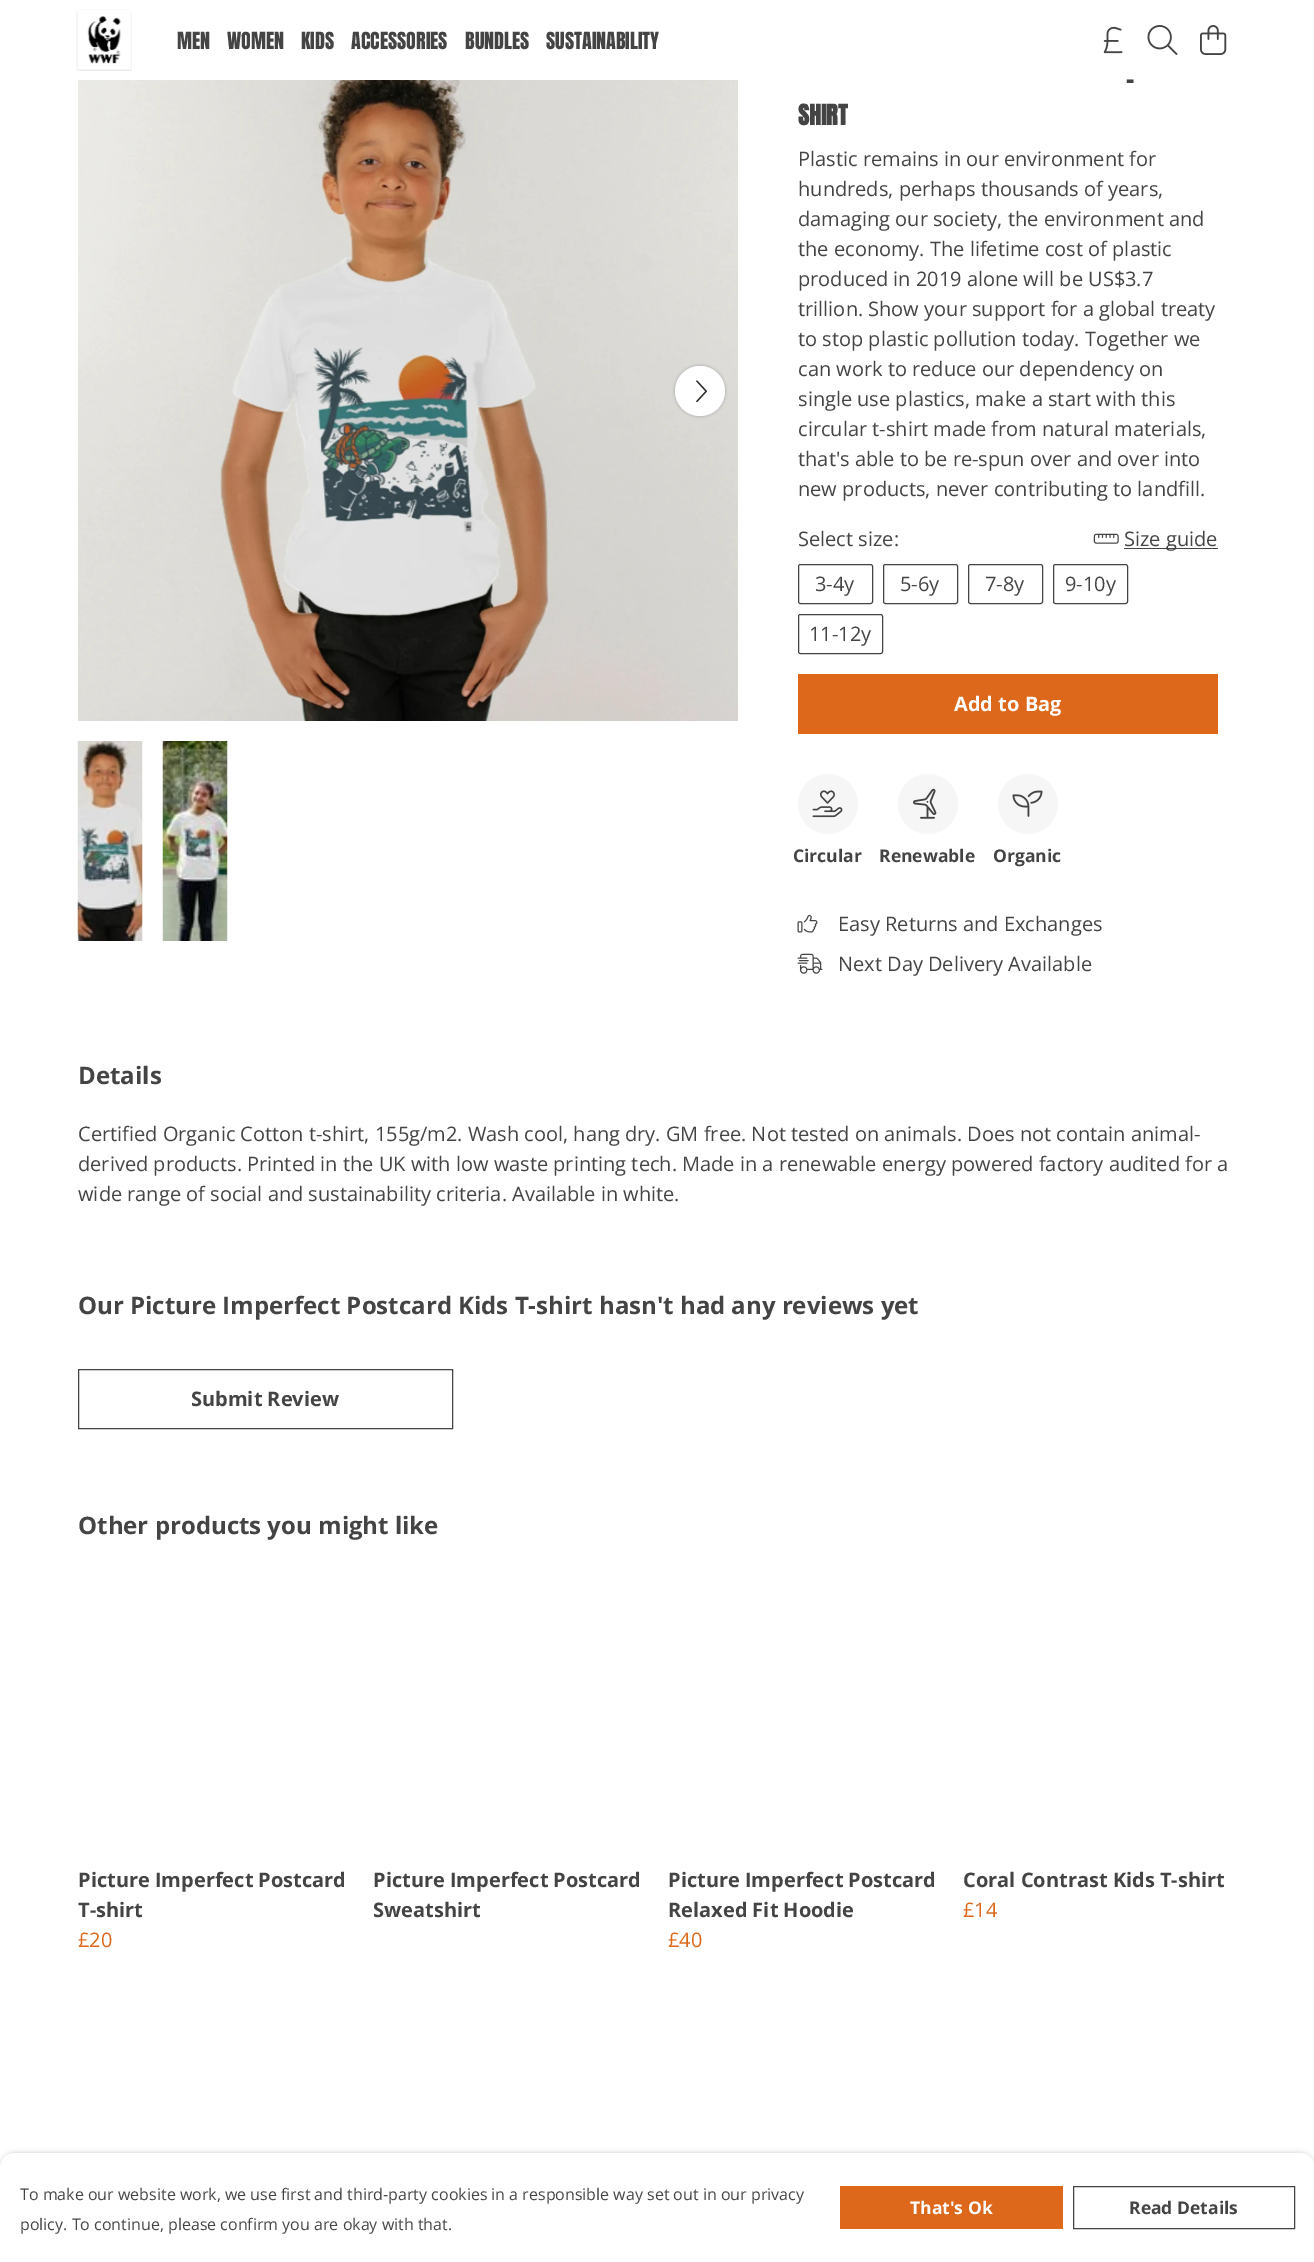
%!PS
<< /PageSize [1314 2262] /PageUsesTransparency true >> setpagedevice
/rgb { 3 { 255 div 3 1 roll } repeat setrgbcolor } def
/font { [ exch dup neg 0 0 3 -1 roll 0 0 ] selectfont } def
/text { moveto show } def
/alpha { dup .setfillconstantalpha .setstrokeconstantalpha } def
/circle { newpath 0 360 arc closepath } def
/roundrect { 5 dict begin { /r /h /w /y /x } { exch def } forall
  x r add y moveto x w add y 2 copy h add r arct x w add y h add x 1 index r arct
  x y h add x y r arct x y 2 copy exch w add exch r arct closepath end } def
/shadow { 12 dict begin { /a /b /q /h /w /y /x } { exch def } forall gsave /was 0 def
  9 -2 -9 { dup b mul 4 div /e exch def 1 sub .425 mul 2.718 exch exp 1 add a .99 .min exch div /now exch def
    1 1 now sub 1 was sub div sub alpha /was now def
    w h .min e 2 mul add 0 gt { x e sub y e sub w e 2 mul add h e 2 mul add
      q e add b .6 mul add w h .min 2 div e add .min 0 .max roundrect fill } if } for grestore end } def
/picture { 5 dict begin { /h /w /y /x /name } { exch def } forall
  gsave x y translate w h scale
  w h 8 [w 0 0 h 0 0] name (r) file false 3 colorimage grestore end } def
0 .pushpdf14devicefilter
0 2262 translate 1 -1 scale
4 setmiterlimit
255 255 255 rgb
0 0 1314 2262 rectfill
(img_01.rgb) 76 9 56 62 picture
(img_02.rgb) 1103 26 20 28 picture
(img_03.rgb) 1147 25 31 30 picture
(img_04.rgb) 1200 25 27 30 picture
(img_05.rgb) 78 80 660 641 picture
0 0 0 rgb
675 366 50 50 25 1.5 0.25 shadow
255 255 255 rgb
700 391 25 circle fill
(img_06.rgb) 696 380 11 23 picture
(img_07.rgb) 77 741 66 200 picture
(img_08.rgb) 162 741 66 200 picture
(img_09.rgb) 1093 533 26 11 picture
68 68 68 rgb
1124 548 94 1 rectfill
798.5 564.5 74 39 2 roundrect stroke
883.5 564.5 74 39 2 roundrect stroke
968.5 564.5 74 39 2 roundrect stroke
1053.5 564.5 74 39 2 roundrect stroke
798.5 614.5 84 39 2 roundrect stroke
221 104 27 rgb
798 674 420 60 rectfill
246 246 246 rgb
828 804 30 circle fill
(img_10.rgb) 812 790 31 28 picture
928 804 30 circle fill
(img_11.rgb) 913 788 24 31 picture
1028 804 30 circle fill
(img_12.rgb) 1012 790 31 27 picture
(img_13.rgb) 797 915 21 18 picture
(img_14.rgb) 797 953 26 21 picture
68 68 68 rgb
78.5 1369.5 374 59 rectstroke
0 0 0 rgb
0 2153 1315 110 15 2.5 0.2 shadow
255 255 255 rgb
15 2153 moveto 1285 0 rlineto 8.5 0 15 6.5 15 15 rcurveto 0 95 rlineto -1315 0 rlineto 0 -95 rlineto 0 -8.5 6.5 -15 15 -15 rcurveto closepath fill
221 104 27 rgb
840 2186 223 43 rectfill
68 68 68 rgb
1073.5 2186.5 221 42 rectstroke
/Anton-Regular 20 font
(MEN) 177 49 text
(WOMEN) 227 49 text
(KIDS) 301 49 text
(ACCESSORIES) 351 49 text
(BUNDLES) 465 49 text
(SUSTAINABILITY) 546 49 text
/Anton-Bold 24 font
(-) 1126 89 text
(SHIRT) 798 125 text
/OpenSans-Regular 20 font
(Plastic remains in our environment for) 798 166 text
(hundreds, perhaps thousands of years,) 798 196 text
(damaging our society, the environment and) 798 226 text
(the economy. The lifetime cost of plastic) 798 256 text
(produced in 2019 alone will be US$3.7) 798 286 text
(trillion. Show your support for a global treaty) 798 316 text
(to stop plastic pollution today. Together we) 798 346 text
(can work to reduce our dependency on) 798 376 text
(single use plastics, make a start with this) 798 406 text
(circular t-shirt made from natural materials,) 798 436 text
(that's able to be re-spun over and over into) 798 466 text
(new products, never contributing to landfill.) 798 496 text
(Select size:) 798 546 text
(Size guide) 1124 546 text
(3-4y) 815 591 text
(5-6y) 900 591 text
(7-8y) 985 591 text
(9-10y) 1065 591 text
(11-12y) 809 641 text
/OpenSans-Bold 20 font
255 255 255 rgb
(Add to Bag) 954 711 text
/OpenSans-Bold 17.5 font
68 68 68 rgb
(Circular) 793 862 text
(Renewable) 879 862 text
(Organic) 993 862 text
/OpenSans-Regular 20 font
(Easy Returns and Exchanges) 838 931 text
(Next Day Delivery Available) 838 971 text
/OpenSans-Bold 24 font
(Details) 78 1084 text
/OpenSans-Regular 20 font
(Certified Organic Cotton t-shirt, 155g/m2. Wash cool, hang dry. GM free. Not tested on animals. Does not contain animal-) 78 1141 text
(derived products. Printed in the UK with low waste printing tech. Made in a renewable energy powered factory audited for a) 78 1171 text
(wide range of social and sustainability criteria. Available in white.) 78 1201 text
/OpenSans-Bold 24 font
(Our Picture Imperfect Postcard Kids T-shirt hasn't had any reviews yet) 78 1314 text
/OpenSans-Bold 20 font
(Submit Review) 191 1406 text
/OpenSans-Bold 24 font
(Other products you might like) 78 1534 text
/OpenSans-Bold 20 font
(Picture Imperfect Postcard) 78 1887 text
(T-shirt) 78 1917 text
/OpenSans-Regular 20 font
221 104 27 rgb
(£20) 78 1947 text
/OpenSans-Bold 20 font
68 68 68 rgb
(Picture Imperfect Postcard) 373 1887 text
(Sweatshirt) 373 1917 text
(Picture Imperfect Postcard) 668 1887 text
(Relaxed Fit Hoodie) 668 1917 text
/OpenSans-Regular 20 font
221 104 27 rgb
(£40) 668 1947 text
/OpenSans-Bold 20 font
68 68 68 rgb
(Coral Contrast Kids T-shirt) 963 1887 text
/OpenSans-Regular 20 font
221 104 27 rgb
(£14) 963 1917 text
/OpenSans-Regular 16 font
68 68 68 rgb
(To make our website work, we use first and third-party cookies in a responsible way set out in our privacy) 20 2200 text
(policy. To continue, please confirm you are okay with that.) 20 2230 text
/OpenSans-Bold 17.5 font
255 255 255 rgb
(That's Ok) 910 2214 text
68 68 68 rgb
(Read Details) 1129 2214 text
.poppdf14devicefilter showpage
